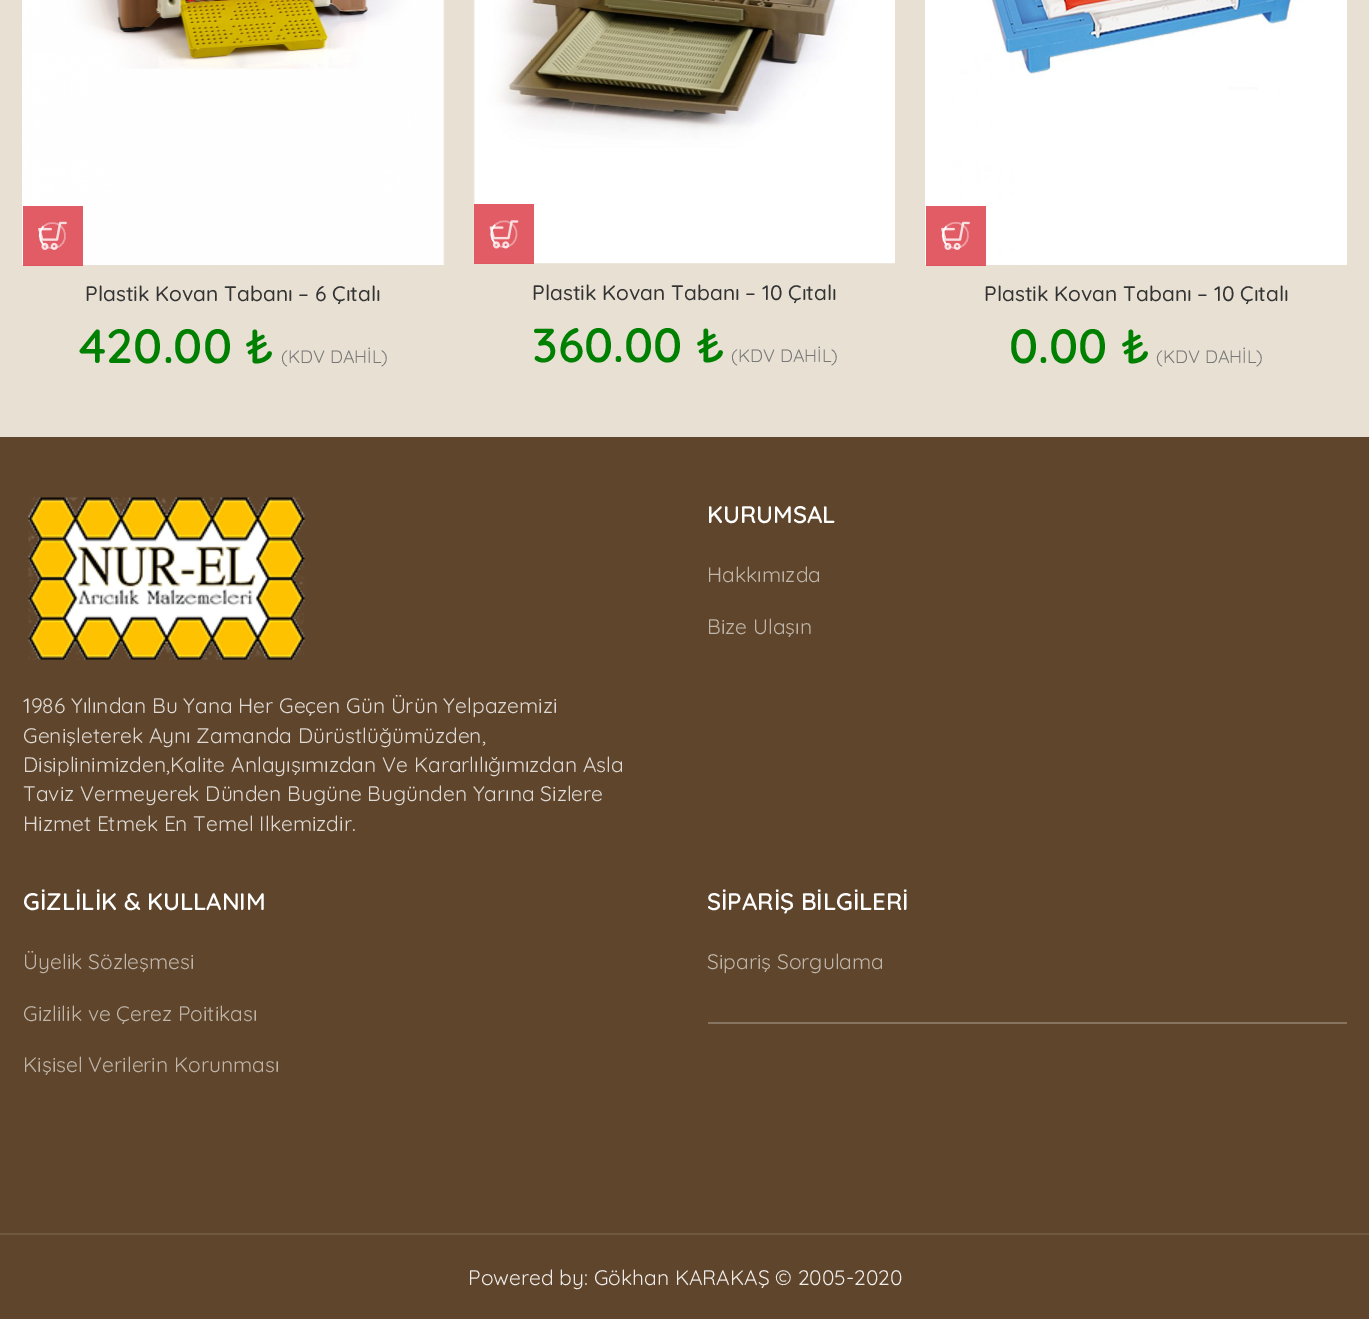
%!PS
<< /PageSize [1369 1319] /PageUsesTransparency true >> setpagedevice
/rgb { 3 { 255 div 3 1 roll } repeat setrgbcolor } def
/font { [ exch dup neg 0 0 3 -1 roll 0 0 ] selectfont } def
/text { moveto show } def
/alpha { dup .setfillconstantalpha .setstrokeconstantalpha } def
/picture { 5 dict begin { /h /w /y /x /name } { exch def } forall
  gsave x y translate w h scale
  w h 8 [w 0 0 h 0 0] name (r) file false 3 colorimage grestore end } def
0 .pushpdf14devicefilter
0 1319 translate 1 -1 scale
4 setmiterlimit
231 224 211 rgb
0 0 1369 1319 rectfill
(img_01.rgb) 22 0 423 265 picture
0.8 alpha
219 51 64 rgb
23 206 60 60 rectfill
1 alpha
(img_02.rgb) 38 221 29 29 picture
0.4 alpha
254 254 254 rgb
1.5 setlinewidth
43.5 226.5 moveto 2.5 -2.5 5.5 -3.5 9 -3.5 rcurveto 15 0 17.5 22 2.5 25 rcurveto -4 1 -8.5 -0.5 -11.5 -3.5 rcurveto stroke
1 alpha
43.5 244.5 moveto -5 -5 -5 -13 0 -18 rcurveto stroke
(img_03.rgb) 473 0 422 264 picture
0.8 alpha
219 51 64 rgb
474 204 60 60 rectfill
1 alpha
(img_04.rgb) 489 220 30 29 picture
0.4 alpha
255 255 255 rgb
495 225 moveto 3 -3 7.5 -4.5 11.5 -3.5 rcurveto 15 3 12.5 25.5 -2.5 25.5 rcurveto -3.5 0 -6.5 -1.5 -9 -4 rcurveto stroke
1 alpha
495 243 moveto -5 -5 -5 -13 0 -18 rcurveto stroke
(img_05.rgb) 925 0 422 265 picture
0.8 alpha
219 51 64 rgb
926 206 60 60 rectfill
1 alpha
(img_06.rgb) 941 221 29 29 picture
0.4 alpha
255 255 255 rgb
946.5 226.5 moveto 3 -3 7.5 -4.5 11.5 -3.5 rcurveto 15 3 12.5 25 -2.5 25 rcurveto -3.5 0 -6.5 -1 -9 -3.5 rcurveto stroke
1 alpha
946.5 244.5 moveto -5 -5 -5 -13 0 -18 rcurveto stroke
95 69 43 rgb
0 437 1369 882 rectfill
(img_07.rgb) 28 497 277 163 picture
135 116 96 rgb
708 1022 639 2 rectfill
111 88 64 rgb
0 1233 1369 2 rectfill
/Quicksand-Medium 21 font
51 51 51 rgb
(Plastik Kovan Tabanı – 6 Çıtalı) 85 301 text
/Quicksand-SemiBold 48 font
0 128 0 rgb
(420.00 ₺) 79 363 text
/Quicksand-Regular 18 font
119 119 119 rgb
(\(KDV DAHİL\)) 281 363 text
/Quicksand-Medium 21 font
51 51 51 rgb
(Plastik Kovan Tabanı – 10 Çıtalı) 532 300 text
/Quicksand-SemiBold 48 font
0 128 0 rgb
(360.00 ₺) 532 362 text
/Quicksand-Regular 18 font
119 119 119 rgb
(\(KDV DAHİL\)) 731 362 text
/Quicksand-Medium 21 font
51 51 51 rgb
(Plastik Kovan Tabanı – 10 Çıtalı) 984 301 text
/Quicksand-SemiBold 48 font
0 128 0 rgb
(0.00 ₺) 1009 363 text
/Quicksand-Regular 18 font
119 119 119 rgb
(\(KDV DAHİL\)) 1156 363 text
/Quicksand-SemiBold 24 font
255 255 255 rgb
(KURUMSAL) 707 523 text
/Quicksand-Regular 21 font
191 181 170 rgb
(Hakkımızda) 707 582 text
(Bize Ulaşın) 707 634 text
223 218 213 rgb
(1986 Yılından Bu Yana Her Geçen Gün Ürün Yelpazemizi) 23 713 text
(Genişleterek Aynı Zamanda Dürüstlüğümüzden,) 23 743 text
(Disiplinimizden,Kalite Anlayışımızdan Ve Kararlılığımızdan Asla) 23 772 text
(Taviz Vermeyerek Dünden Bugüne Bugünden Yarına Sizlere) 23 801 text
(Hizmet Etmek En Temel Ilkemizdir.) 23 831 text
/Quicksand-SemiBold 24 font
255 255 255 rgb
(GİZLİLİK & KULLANIM) 23 910 text
/Quicksand-Regular 21 font
191 181 170 rgb
(Üyelik Sözleşmesi) 23 969 text
(Gizlilik ve Çerez Poitikası) 23 1021 text
(Kişisel Verilerin Korunması) 23 1072 text
/Quicksand-SemiBold 24 font
255 255 255 rgb
(SİPARİŞ BİLGİLERİ) 707 910 text
/Quicksand-Regular 21 font
191 181 170 rgb
(Sipariş Sorgulama) 707 969 text
239 236 234 rgb
(Powered by: Gökhan KARAKAŞ © 2005-2020) 468 1285 text
.poppdf14devicefilter showpage
